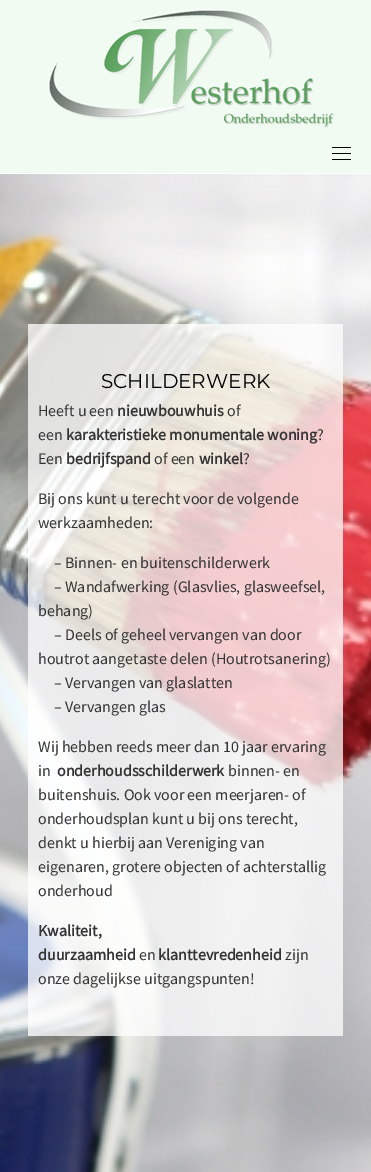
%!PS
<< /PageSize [371 1172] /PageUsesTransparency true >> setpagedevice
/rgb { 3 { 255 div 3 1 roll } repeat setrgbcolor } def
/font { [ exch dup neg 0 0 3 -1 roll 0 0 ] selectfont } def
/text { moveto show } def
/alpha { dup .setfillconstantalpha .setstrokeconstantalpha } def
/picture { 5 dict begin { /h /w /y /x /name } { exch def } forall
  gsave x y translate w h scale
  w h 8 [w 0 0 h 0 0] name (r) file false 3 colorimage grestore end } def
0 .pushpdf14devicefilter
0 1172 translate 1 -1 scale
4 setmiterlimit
255 255 255 rgb
0 0 371 1172 rectfill
241 251 242 rgb
0 0 371 173 rectfill
(img_01.rgb) 48 9 286 119 picture
0 0 0 rgb
332 147 19 1 rectfill
332 153 19 1 rectfill
332 159 19 1 rectfill
(img_02.rgb) 0 174 371 998 picture
0.75 alpha
255 255 255 rgb
28 324 315 712 rectfill
/Montserrat-Thin 20 font
1 alpha
0 0 0 rgb
(SCHILDERWERK) 101 388 text
/SourceSansPro-Regular 16 font
51 51 51 rgb
(Heeft u een) 38 416 text
/SourceSansPro-Bold 16 font
(nieuwbouwhuis) 117 416 text
/SourceSansPro-Regular 16 font
(of) 227 416 text
(een) 38 440 text
/SourceSansPro-Bold 16 font
(karakteristieke monumentale woning) 66 440 text
/SourceSansPro-Regular 16 font
(?) 317 440 text
(Een) 38 464 text
/SourceSansPro-Bold 16 font
(bedrijfspand) 66 464 text
/SourceSansPro-Regular 16 font
(of een) 154 464 text
/SourceSansPro-Bold 16 font
(winkel) 199 464 text
/SourceSansPro-Regular 16 font
(?) 243 464 text
(Bij ons kunt u terecht voor de volgende) 38 504 text
(werkzaamheden:) 38 528 text
(– Binnen- en buitenschilderwerk) 54 568 text
(– Wandafwerking \(Glasvlies, glasweefsel,) 54 592 text
(behang\)) 38 616 text
(– Deels of geheel vervangen van door) 54 640 text
(houtrot aangetaste delen \(Houtrotsanering\)) 38 664 text
(– Vervangen van glaslatten) 54 688 text
(– Vervangen glas) 54 712 text
(Wij hebben reeds meer dan 10 jaar ervaring) 38 752 text
(in) 38 776 text
/SourceSansPro-Bold 16 font
(onderhoudsschilderwerk) 57 776 text
/SourceSansPro-Regular 16 font
(binnen- en) 228 776 text
(buitenshuis. Ook voor een meerjaren- of) 38 800 text
(onderhoudsplan kunt u bij ons terecht,) 38 824 text
(denkt u hierbij aan Vereniging van) 38 848 text
(eigenaren, grotere objecten of achterstallig) 38 872 text
(onderhoud) 38 896 text
/SourceSansPro-Bold 16 font
(Kwaliteit,) 38 936 text
(duurzaamheid) 38 960 text
/SourceSansPro-Regular 16 font
(en) 139 960 text
/SourceSansPro-Bold 16 font
(klanttevredenheid) 158 960 text
/SourceSansPro-Regular 16 font
(zijn) 285 960 text
(onze dagelijkse uitgangspunten!) 38 984 text
.poppdf14devicefilter showpage
